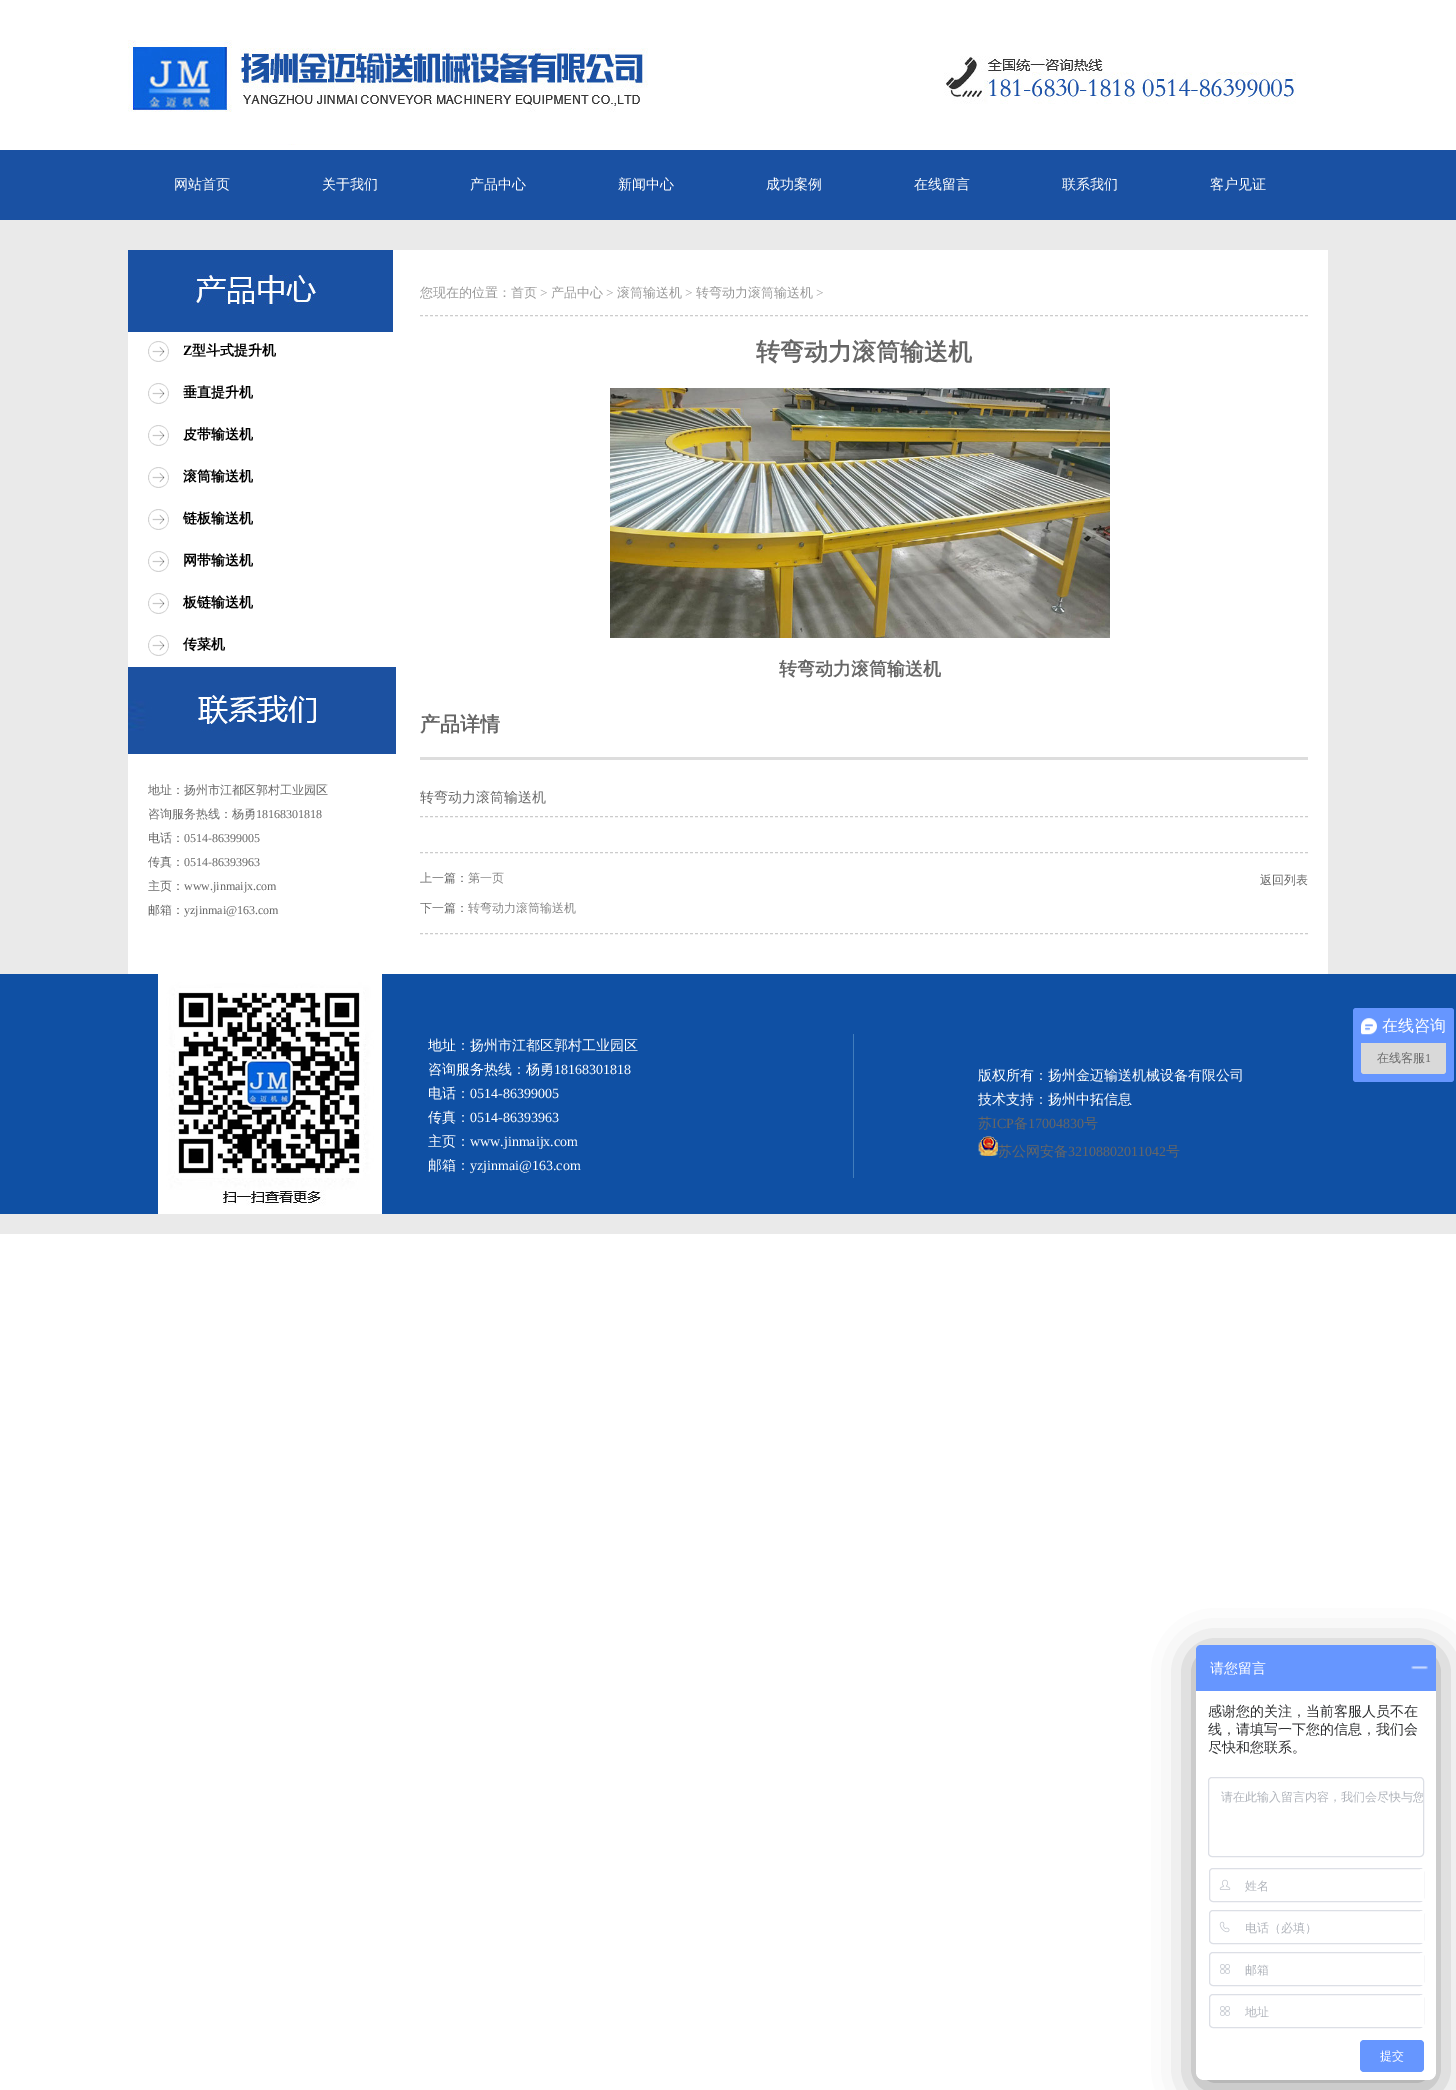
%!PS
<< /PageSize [1456 2090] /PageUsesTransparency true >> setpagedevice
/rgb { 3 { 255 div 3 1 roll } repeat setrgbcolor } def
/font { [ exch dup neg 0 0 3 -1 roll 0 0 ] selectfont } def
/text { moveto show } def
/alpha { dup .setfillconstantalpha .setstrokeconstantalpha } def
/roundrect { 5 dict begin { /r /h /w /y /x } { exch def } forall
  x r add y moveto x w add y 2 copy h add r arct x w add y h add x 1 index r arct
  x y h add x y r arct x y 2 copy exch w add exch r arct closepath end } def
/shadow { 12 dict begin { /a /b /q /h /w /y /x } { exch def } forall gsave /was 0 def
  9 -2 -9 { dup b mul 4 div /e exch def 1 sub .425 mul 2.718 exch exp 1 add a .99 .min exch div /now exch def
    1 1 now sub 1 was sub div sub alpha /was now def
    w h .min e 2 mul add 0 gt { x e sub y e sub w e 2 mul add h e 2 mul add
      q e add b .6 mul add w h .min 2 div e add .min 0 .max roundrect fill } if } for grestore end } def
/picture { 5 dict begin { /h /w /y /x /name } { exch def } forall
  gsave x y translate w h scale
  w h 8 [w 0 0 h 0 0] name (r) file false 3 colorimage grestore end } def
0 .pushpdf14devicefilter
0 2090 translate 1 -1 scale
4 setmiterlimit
255 255 255 rgb
0 0 1456 2090 rectfill
(img_01.rgb) 128 40 1168 105 picture
26 81 163 rgb
0 150 1456 70 rectfill
234 234 234 rgb
0 220 1456 1014 rectfill
255 255 255 rgb
128 250 1200 724 rectfill
(img_02.rgb) 128 250 265 82 picture
(img_03.rgb) 148 341 21 21 picture
(img_03.rgb) 148 383 21 21 picture
(img_03.rgb) 148 425 21 21 picture
(img_03.rgb) 148 467 21 21 picture
(img_03.rgb) 148 509 21 21 picture
(img_03.rgb) 148 551 21 21 picture
(img_03.rgb) 148 593 21 21 picture
(img_03.rgb) 148 635 21 21 picture
(img_04.rgb) 128 667 268 87 picture
204 204 204 rgb
[3 2] 0 setdash
420 315.5 moveto 888 0 rlineto stroke
(img_05.rgb) 610 388 500 250 picture
221 221 221 rgb
420 757 888 3 rectfill
204 204 204 rgb
420 816.5 moveto 888 0 rlineto stroke
420 852.5 moveto 888 0 rlineto stroke
420 933.5 moveto 888 0 rlineto stroke
15 80 164 rgb
0 974 1456 240 rectfill
(img_06.rgb) 158 974 224 240 picture
65 125 188 rgb
853 1034 1 144 rectfill
(img_07.rgb) 978 1136 20 20 picture
102 150 255 rgb
1353 1008 101 74 3 roundrect fill
(img_08.rgb) 1361 1018 16 17 picture
217 217 217 rgb
1361 1043 moveto 85 0 rlineto 0 28 rlineto 0 1.5 -1.5 3 -3 3 rcurveto -79 0 rlineto -1.5 0 -3 -1.5 -3 -3 rcurveto closepath fill
0 0 0 rgb
1196 1653 240 435 8 20 0.4 shadow
255 255 255 rgb
1196 1645 240 435 8 roundrect fill
102 150 255 rgb
1201 1645 moveto 230 0 rlineto 3 0 5 2 5 5 rcurveto 0 41 rlineto -240 0 rlineto 0 -41 rlineto 0 -3 2 -5 5 -5 rcurveto closepath fill
(img_09.rgb) 1411 1666 17 4 picture
220 223 230 rgb
[] 0 setdash
1208.5 1777.5 215 79 3.5 roundrect stroke
1209.5 1868.5 214 33 3.5 roundrect stroke
(img_10.rgb) 1219 1879 12 11 picture
255 255 255 rgb
1420 1869 4 32 rectfill
220 223 230 rgb
1209.5 1910.5 214 33 3.5 roundrect stroke
(img_11.rgb) 1219 1921 11 12 picture
255 255 255 rgb
1420 1911 4 32 rectfill
220 223 230 rgb
1209.5 1952.5 214 33 3.5 roundrect stroke
(img_12.rgb) 1220 1964 10 10 picture
255 255 255 rgb
1420 1953 4 32 rectfill
220 223 230 rgb
1209.5 1994.5 214 33 3.5 roundrect stroke
(img_12.rgb) 1220 2006 10 10 picture
255 255 255 rgb
1420 1995 4 32 rectfill
102 150 255 rgb
1360 2040 64 32 4 roundrect fill
/WenQuanYiZenHei-Medium 14 font
255 255 255 rgb
(网站首页) 174 189 text
(关于我们) 322 189 text
(产品中心) 470 189 text
(新闻中心) 618 189 text
(成功案例) 766 189 text
(在线留言) 914 189 text
(联系我们) 1062 189 text
(客户见证) 1210 189 text
/LiberationSerif-Bold 14 font
0 0 0 rgb
(Z) 183 355 text
/WenQuanYiZenHei-Bold 14 font
(型斗式提升机) 192 355 text
(垂直提升机) 183 397 text
(皮带输送机) 183 439 text
(滚筒输送机) 183 481 text
(链板输送机) 183 523 text
(网带输送机) 183 565 text
(板链输送机) 183 607 text
(传菜机) 183 649 text
/WenQuanYiZenHei-Medium 12 font
102 102 102 rgb
(地址：扬州市江都区郭村工业园区) 148 794 text
(咨询服务热线：杨勇) 148 818 text
/LiberationSerif-Regular 12 font
(18168301818) 256 818 text
/WenQuanYiZenHei-Medium 12 font
(电话：) 148 842 text
/LiberationSerif-Regular 12 font
(0514-86399005) 184 842 text
/WenQuanYiZenHei-Medium 12 font
(传真：) 148 866 text
/LiberationSerif-Regular 12 font
(0514-86393963) 184 866 text
/WenQuanYiZenHei-Medium 12 font
(主页：) 148 890 text
/LiberationSerif-Regular 12 font
(www.jinmaijx.com) 184 890 text
/WenQuanYiZenHei-Medium 12 font
(邮箱：) 148 914 text
/LiberationSerif-Regular 12 font
(yzjinmai@163.com) 184 914 text
/WenQuanYiZenHei-Medium 13 font
153 153 153 rgb
(您现在的位置：首页) 420 297 text
/LiberationSerif-Regular 13 font
(>) 540 297 text
/WenQuanYiZenHei-Medium 13 font
(产品中心) 551 297 text
/LiberationSerif-Regular 13 font
(>) 606 297 text
/WenQuanYiZenHei-Medium 13 font
(滚筒输送机) 617 297 text
/LiberationSerif-Regular 13 font
(>) 685 297 text
/WenQuanYiZenHei-Medium 13 font
(转弯动力滚筒输送机) 696 297 text
/LiberationSerif-Regular 13 font
(>) 816 297 text
/WenQuanYiZenHei-Bold 24 font
102 102 102 rgb
(转弯动力滚筒输送机) 756 360 text
/WenQuanYiZenHei-Bold 18 font
(转弯动力滚筒输送机) 779 675 text
/WenQuanYiZenHei-Bold 20 font
(产品详情) 420 731 text
/WenQuanYiZenHei-Medium 14 font
(转弯动力滚筒输送机) 420 802 text
/WenQuanYiZenHei-Medium 12 font
(上一篇：) 420 882 text
136 136 136 rgb
(第一页) 468 882 text
102 102 102 rgb
(下一篇：) 420 912 text
136 136 136 rgb
(转弯动力滚筒输送机) 468 912 text
102 102 102 rgb
(返回列表) 1260 884 text
/WenQuanYiZenHei-Medium 14 font
255 255 255 rgb
(地址：扬州市江都区郭村工业园区) 428 1050 text
(咨询服务热线：杨勇) 428 1074 text
/LiberationSerif-Regular 14 font
(18168301818) 554 1074 text
/WenQuanYiZenHei-Medium 14 font
(电话：) 428 1098 text
/LiberationSerif-Regular 14 font
(0514-86399005) 470 1098 text
/WenQuanYiZenHei-Medium 14 font
(传真：) 428 1122 text
/LiberationSerif-Regular 14 font
(0514-86393963) 470 1122 text
/WenQuanYiZenHei-Medium 14 font
(主页：) 428 1146 text
/LiberationSerif-Regular 14 font
(www.jinmaijx.com) 470 1146 text
/WenQuanYiZenHei-Medium 14 font
(邮箱：) 428 1170 text
/LiberationSerif-Regular 14 font
(yzjinmai@163.com) 470 1170 text
/WenQuanYiZenHei-Medium 14 font
(版权所有：扬州金迈输送机械设备有限公司) 978 1080 text
(技术支持：扬州中拓信息) 978 1104 text
102 102 102 rgb
(苏) 978 1128 text
/LiberationSerif-Regular 14 font
(ICP) 992 1128 text
/WenQuanYiZenHei-Medium 14 font
(备) 1014 1128 text
/LiberationSerif-Regular 14 font
(17004830) 1028 1128 text
/WenQuanYiZenHei-Medium 14 font
(号) 1084 1128 text
(苏公网安备) 998 1156 text
/LiberationSerif-Regular 14 font
(32108802011042) 1068 1156 text
/WenQuanYiZenHei-Medium 14 font
(号) 1166 1156 text
/WenQuanYiZenHei-Medium 16 font
255 255 255 rgb
(在线咨询) 1382 1031 text
/WenQuanYiZenHei-Medium 12 font
102 102 102 rgb
(在线客服) 1377 1062 text
/LiberationSerif-Regular 12 font
(1) 1425 1062 text
/WenQuanYiZenHei-Medium 14 font
255 255 255 rgb
(请您留言) 1210 1673 text
48 49 51 rgb
(感谢您的关注，当前客服人员不在) 1208 1716 text
(线，请填写一下您的信息，我们会) 1208 1734 text
(尽快和您联系。) 1208 1752 text
gsave
1209 1778 214 78 3 roundrect clip newpath
/WenQuanYiZenHei-Medium 12 font
176 180 187 rgb
(请在此输入留言内容，我们会尽快与您) 1221 1801 text
grestore
/WenQuanYiZenHei-Medium 12 font
176 180 187 rgb
(姓名) 1245 1890 text
(电话（必填）) 1245 1932 text
(邮箱) 1245 1974 text
gsave
1245 2004 181 17 rectclip
(地址) 1245 2016 text
grestore
255 255 255 rgb
(提交) 1380 2060 text
.poppdf14devicefilter showpage
